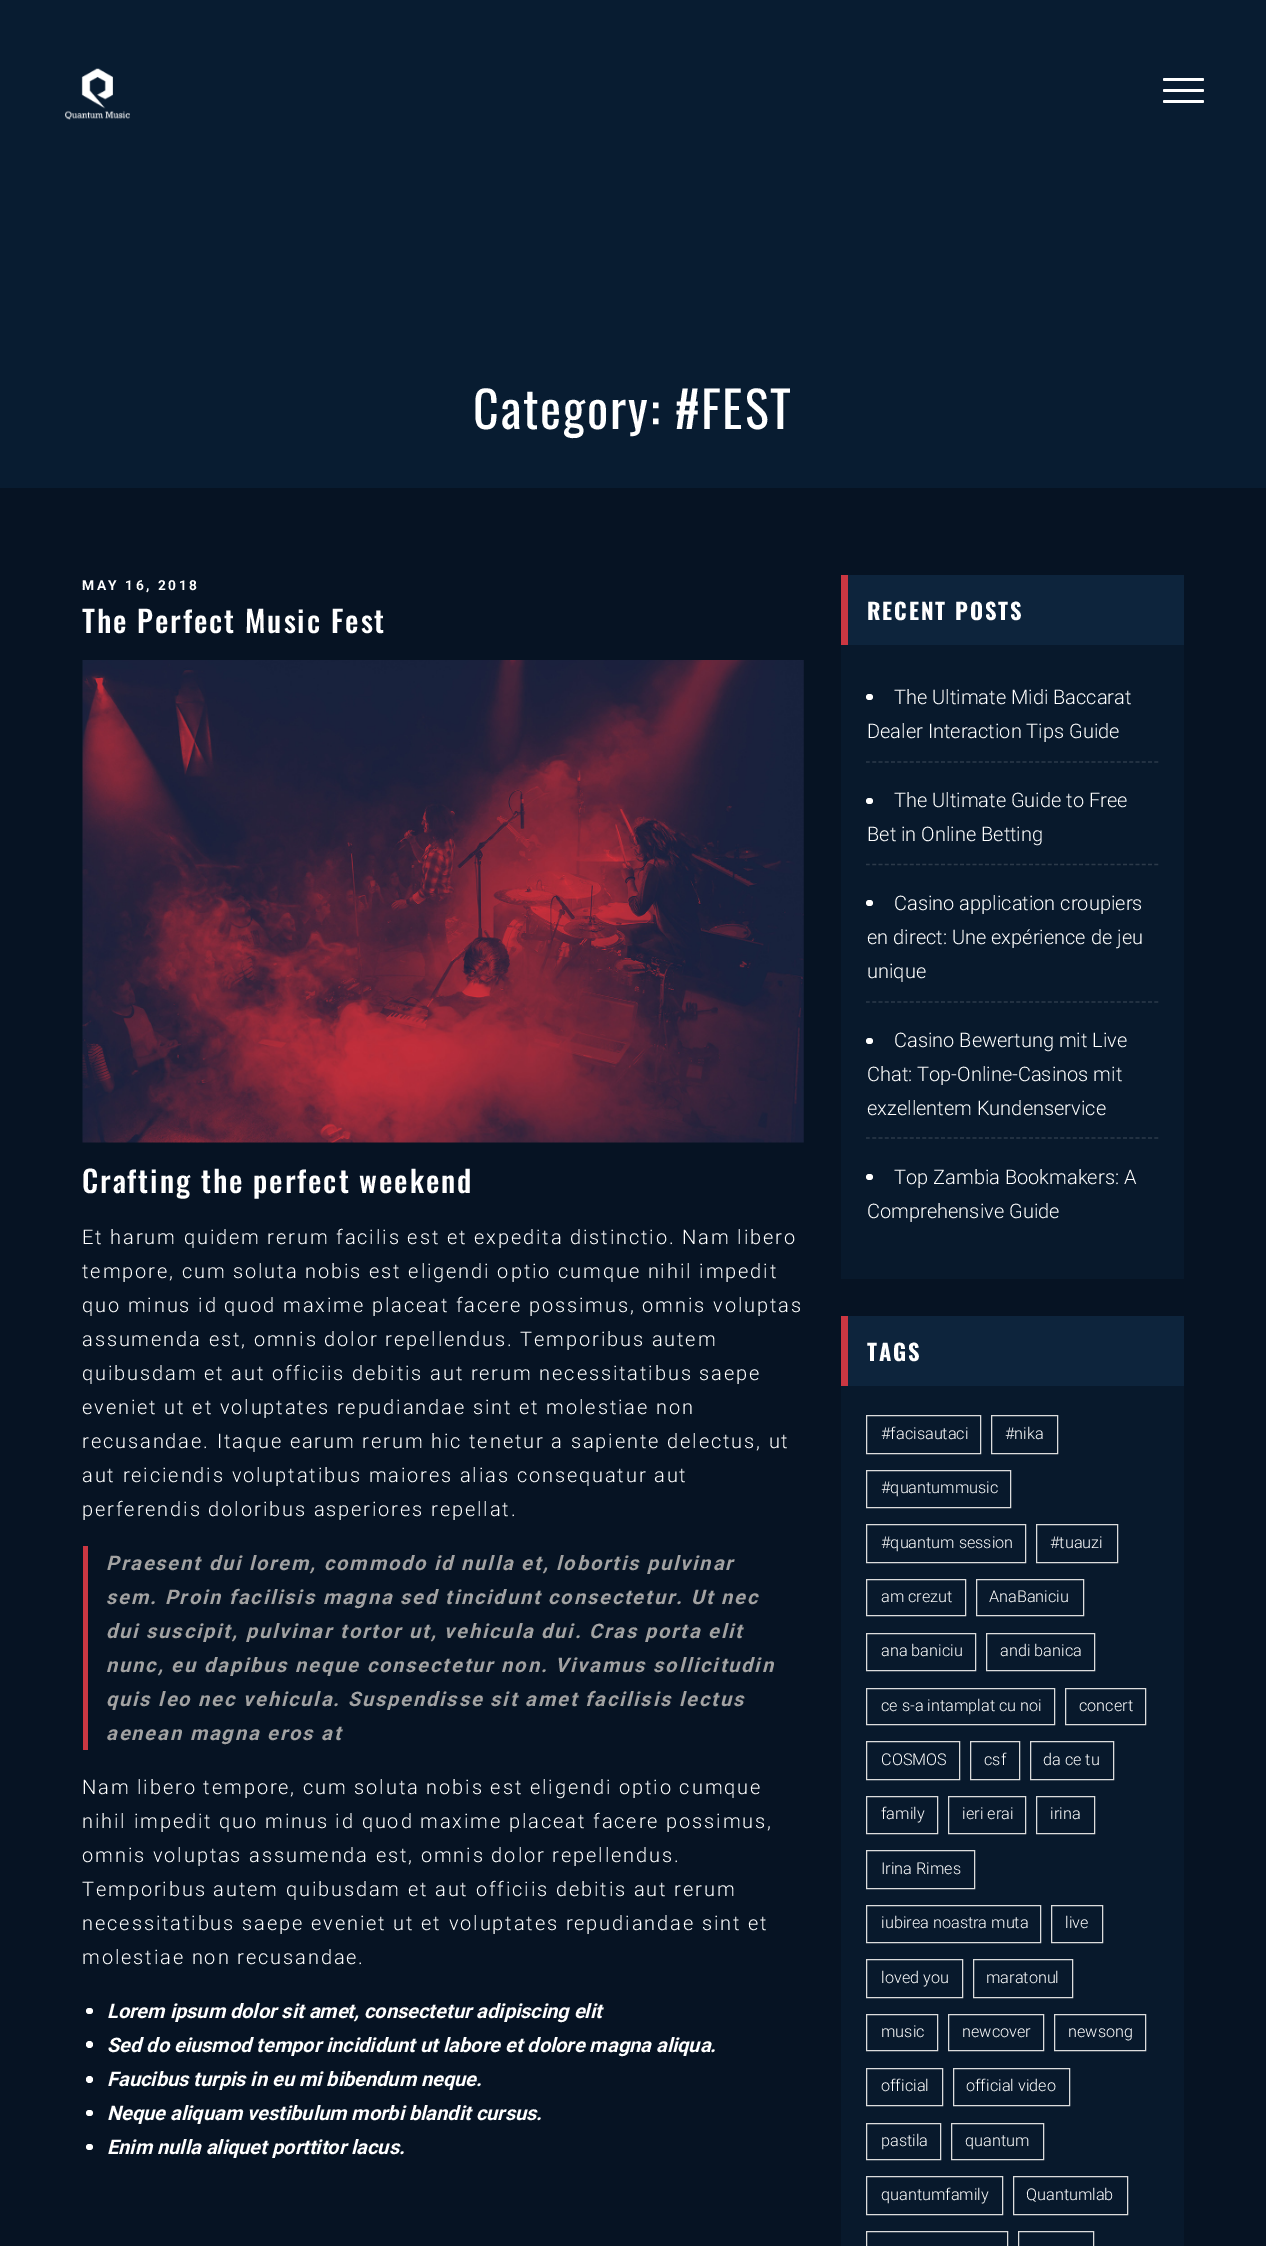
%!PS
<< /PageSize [1266 2246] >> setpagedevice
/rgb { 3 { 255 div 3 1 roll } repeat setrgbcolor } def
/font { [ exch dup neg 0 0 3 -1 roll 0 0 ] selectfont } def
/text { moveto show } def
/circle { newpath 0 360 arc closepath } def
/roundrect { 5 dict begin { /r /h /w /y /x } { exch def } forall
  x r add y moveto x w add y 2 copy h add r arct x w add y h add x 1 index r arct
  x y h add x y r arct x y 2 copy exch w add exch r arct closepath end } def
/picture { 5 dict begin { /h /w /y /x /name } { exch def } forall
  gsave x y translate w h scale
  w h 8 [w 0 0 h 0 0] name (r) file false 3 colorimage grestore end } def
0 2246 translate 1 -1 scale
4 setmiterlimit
6 19 35 rgb
0 0 1266 2246 rectfill
8 28 49 rgb
0 0 1266 488 rectfill
(img_01.rgb) 65 68 65 52 picture
255 255 255 rgb
1163 78 41 3 1.5 roundrect fill
1163 89 41 3 1.5 roundrect fill
1163 100 41 3 1.5 roundrect fill
(img_02.rgb) 82 660 722 483 picture
203 55 66 rgb
83 1546 5 204 rectfill
255 255 255 rgb
86 2008 7 6 3 roundrect fill
89.5 2044.5 3.5 circle fill
89.5 2079.5 3.5 circle fill
86 2110 7 6 3 roundrect fill
86 2144 7 6 3 roundrect fill
8 25 44 rgb
841 645 343 634 rectfill
13 36 60 rgb
848 575 336 70 rectfill
203 55 66 rgb
841 575 7 70 rectfill
44 58 74 rgb
1.2 setlinewidth
[3.75 2.52] 0 setdash
866 762 moveto 293 0 rlineto stroke
255 255 255 rgb
866 694 7 6 3 roundrect fill
44 58 74 rgb
866 864.5 moveto 293 0 rlineto stroke
255 255 255 rgb
866 798 7 6 3 roundrect fill
44 58 74 rgb
866 1002 moveto 293 0 rlineto stroke
255 255 255 rgb
866 900 7 6 3 roundrect fill
44 58 74 rgb
866 1138 moveto 293 0 rlineto stroke
255 255 255 rgb
866 1038 7 6 3 roundrect fill
866 1174 7 6 3 roundrect fill
8 25 44 rgb
841 1386 343 860 rectfill
13 36 60 rgb
848 1316 336 70 rectfill
203 55 66 rgb
841 1316 7 70 rectfill
221 221 221 rgb
1 setlinewidth
[] 0 setdash
866.5 1415.5 114 38 rectstroke
991.5 1415.5 66 38 rectstroke
866.5 1470.5 144 37 rectstroke
866.5 1524.5 159 38 rectstroke
1036.5 1524.5 81 38 rectstroke
866.5 1579.5 99 36 rectstroke
976.5 1579.5 107 36 rectstroke
866.5 1633.5 109 37 rectstroke
986.5 1633.5 108 37 rectstroke
866.5 1688.5 188 36 rectstroke
1065.5 1688.5 80 36 rectstroke
866.5 1741.5 93 38 rectstroke
970.5 1741.5 49 38 rectstroke
1030.5 1741.5 83 38 rectstroke
866.5 1796.5 71 37 rectstroke
948.5 1796.5 77 37 rectstroke
1036.5 1796.5 58 37 rectstroke
866.5 1850.5 108 38 rectstroke
866.5 1905.5 174 37 rectstroke
1051.5 1905.5 51 37 rectstroke
866.5 1959.5 96 38 rectstroke
973.5 1959.5 99 38 rectstroke
866.5 2014.5 71 36 rectstroke
948.5 2014.5 95 36 rectstroke
1054.5 2014.5 91 36 rectstroke
866.5 2068.5 76 37 rectstroke
953.5 2068.5 116 37 rectstroke
866.5 2123.5 74 36 rectstroke
951.5 2123.5 92 36 rectstroke
866.5 2176.5 136 38 rectstroke
1013.5 2176.5 114 38 rectstroke
866.5 2231.5 141 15 rectstroke
1018.5 2231.5 75 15 rectstroke
/Oswald-Regular 50 font
255 255 255 rgb
473 429 moveto 1.88 0 (Category: #FEST) ashow
/Roboto-Bold 13.75 font
82 590 moveto 2.5 0 (MAY 16, 2018) ashow
/Oswald-Medium 30 font
82 633 moveto 1.88 0 (The Perfect Music Fest) ashow
82 1193 moveto 1.88 0 (Crafting the perfect weekend) ashow
/Roboto-Light 20 font
82 1244 moveto 1.88 0 (Et harum quidem rerum facilis est et expedita distinctio. Nam libero) ashow
82 1278 moveto 1.88 0 (tempore, cum soluta nobis est eligendi optio cumque nihil impedit) ashow
82 1312 moveto 1.88 0 (quo minus id quod maxime placeat facere possimus, omnis voluptas) ashow
82 1346 moveto 1.88 0 (assumenda est, omnis dolor repellendus. Temporibus autem) ashow
82 1380 moveto 1.88 0 (quibusdam et aut officiis debitis aut rerum necessitatibus saepe) ashow
82 1414 moveto 1.88 0 (eveniet ut et voluptates repudiandae sint et molestiae non) ashow
82 1448 moveto 1.88 0 (recusandae. Itaque earum rerum hic tenetur a sapiente delectus, ut) ashow
82 1482 moveto 1.88 0 (aut reiciendis voluptatibus maiores alias consequatur aut) ashow
82 1516 moveto 1.88 0 (perferendis doloribus asperiores repellat.) ashow
/Roboto-BoldItalic 20 font
162 162 162 rgb
106 1570 moveto 1.88 0 (Praesent dui lorem, commodo id nulla et, lobortis pulvinar) ashow
106 1604 moveto 1.88 0 (sem. Proin facilisis magna sed tincidunt consectetur. Ut nec) ashow
106 1638 moveto 1.88 0 (dui suscipit, pulvinar tortor ut, vehicula dui. Cras porta elit) ashow
106 1672 moveto 1.88 0 (nunc, eu dapibus neque consectetur non. Vivamus sollicitudin) ashow
106 1706 moveto 1.88 0 (quis leo nec vehicula. Suspendisse sit amet facilisis lectus) ashow
106 1740 moveto 1.88 0 (aenean magna eros at) ashow
/Roboto-Light 20 font
255 255 255 rgb
82 1794 moveto 1.88 0 (Nam libero tempore, cum soluta nobis est eligendi optio cumque) ashow
82 1828 moveto 1.88 0 (nihil impedit quo minus id quod maxime placeat facere possimus,) ashow
82 1862 moveto 1.88 0 (omnis voluptas assumenda est, omnis dolor repellendus.) ashow
82 1896 moveto 1.88 0 (Temporibus autem quibusdam et aut officiis debitis aut rerum) ashow
82 1930 moveto 1.88 0 (necessitatibus saepe eveniet ut et voluptates repudiandae sint et) ashow
82 1964 moveto 1.88 0 (molestiae non recusandae.) ashow
/Roboto-BoldItalic 20 font
(Lorem ipsum dolor sit amet, consectetur adipiscing elit) 107 2018 text
(Sed do eiusmod tempor incididunt ut labore et dolore magna aliqua.) 107 2052 text
(Faucibus turpis in eu mi bibendum neque.) 107 2086 text
(Neque aliquam vestibulum morbi blandit cursus.) 107 2120 text
(Enim nulla aliquet porttitor lacus.) 107 2154 text
/Oswald-Bold 22.5 font
867 620 moveto 1.88 0 (RECENT POSTS) ashow
/Roboto-Light 20 font
(The Ultimate Midi Baccarat) 894 704 text
(Dealer Interaction Tips Guide) 867 738 text
(The Ultimate Guide to Free) 894 807 text
(Bet in Online Betting) 867 841 text
(Casino application croupiers) 894 910 text
(en direct: Une expérience de jeu) 867 944 text
(unique) 867 978 text
(Casino Bewertung mit Live) 894 1047 text
(Chat: Top-Online-Casinos mit) 867 1081 text
(exzellentem Kundenservice) 867 1115 text
(Top Zambia Bookmakers: A) 894 1184 text
(Comprehensive Guide) 867 1218 text
/Oswald-Bold 22.5 font
867 1361 moveto 1.88 0 (TAGS) ashow
/Roboto-Light 16.25 font
(#facisautaci) 881 1439 text
(#nika) 1005 1439 text
(#quantummusic) 881 1493 text
(#quantum session) 881 1548 text
(#tuauzi) 1050 1548 text
(am crezut) 881 1602 text
(AnaBaniciu) 989 1602 text
(ana baniciu) 881 1656 text
(andi banica) 1000 1656 text
(ce s-a intamplat cu noi) 881 1711 text
(concert) 1079 1711 text
(COSMOS) 881 1765 text
(csf) 984 1765 text
(da ce tu) 1043 1765 text
(family) 881 1819 text
(ieri erai) 962 1819 text
(irina) 1050 1819 text
(Irina Rimes) 881 1874 text
(iubirea noastra muta) 881 1928 text
(live) 1065 1928 text
(loved you) 881 1983 text
(maratonul) 986 1983 text
(music) 881 2037 text
(newcover) 962 2037 text
(newsong) 1068 2037 text
(official) 881 2091 text
(official video) 966 2091 text
(pastila) 881 2146 text
(quantum) 965 2146 text
(quantumfamily) 881 2200 text
(Quantumlab) 1026 2200 text
showpage
